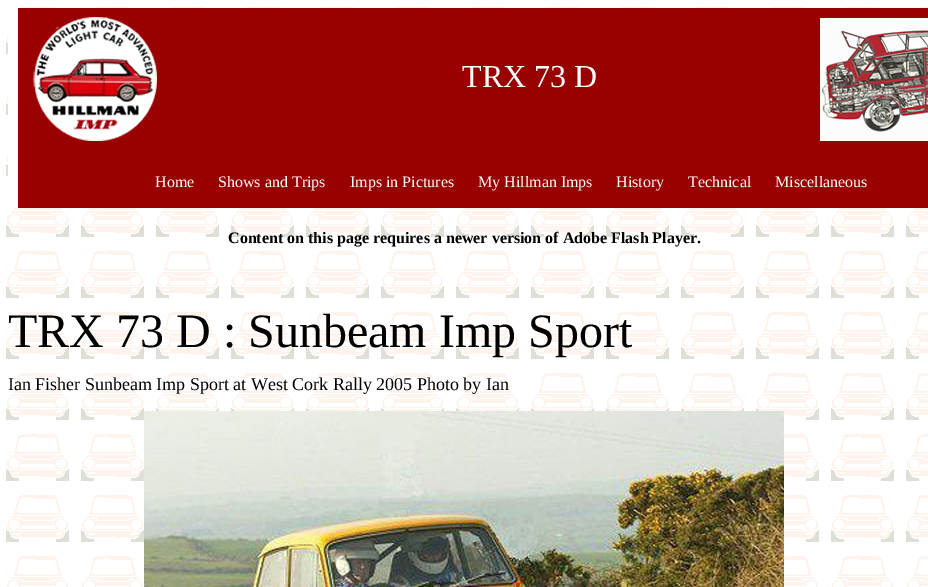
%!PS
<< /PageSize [928 587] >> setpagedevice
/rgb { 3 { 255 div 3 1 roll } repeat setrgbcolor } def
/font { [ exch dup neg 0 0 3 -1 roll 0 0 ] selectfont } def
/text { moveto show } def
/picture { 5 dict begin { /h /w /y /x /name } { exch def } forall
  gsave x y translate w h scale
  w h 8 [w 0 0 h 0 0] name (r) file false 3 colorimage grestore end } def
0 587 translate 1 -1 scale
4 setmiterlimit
255 255 255 rgb
0 0 928 587 rectfill
(img_01.rgb) 6 6 922 581 picture
8 12 10 196 rectfill
(img_02.rgb) 18 8 910 200 picture
(img_03.rgb) 144 411 640 176 picture
/LiberationSerif-Regular 32 font
(TRX 73 D) 462 87 text
/LiberationSerif-Regular 16 font
(Home) 155 187 text
(Shows and Trips) 218 187 text
(Imps in Pictures) 350 187 text
(My Hillman Imps) 478 187 text
(History) 616 187 text
(Technical) 688 187 text
(Miscellaneous) 775 187 text
/LiberationSerif-Bold 16 font
0 0 0 rgb
(Content on this page requires a newer version of Adobe Flash Player.) 228 243 text
/LiberationSerif-Regular 48 font
(TRX 73 D : Sunbeam Imp Sport) 8 347 text
/LiberationSerif-Regular 18 font
(Ian Fisher Sunbeam Imp Sport at West Cork Rally 2005 Photo by Ian) 8 390 text
showpage
